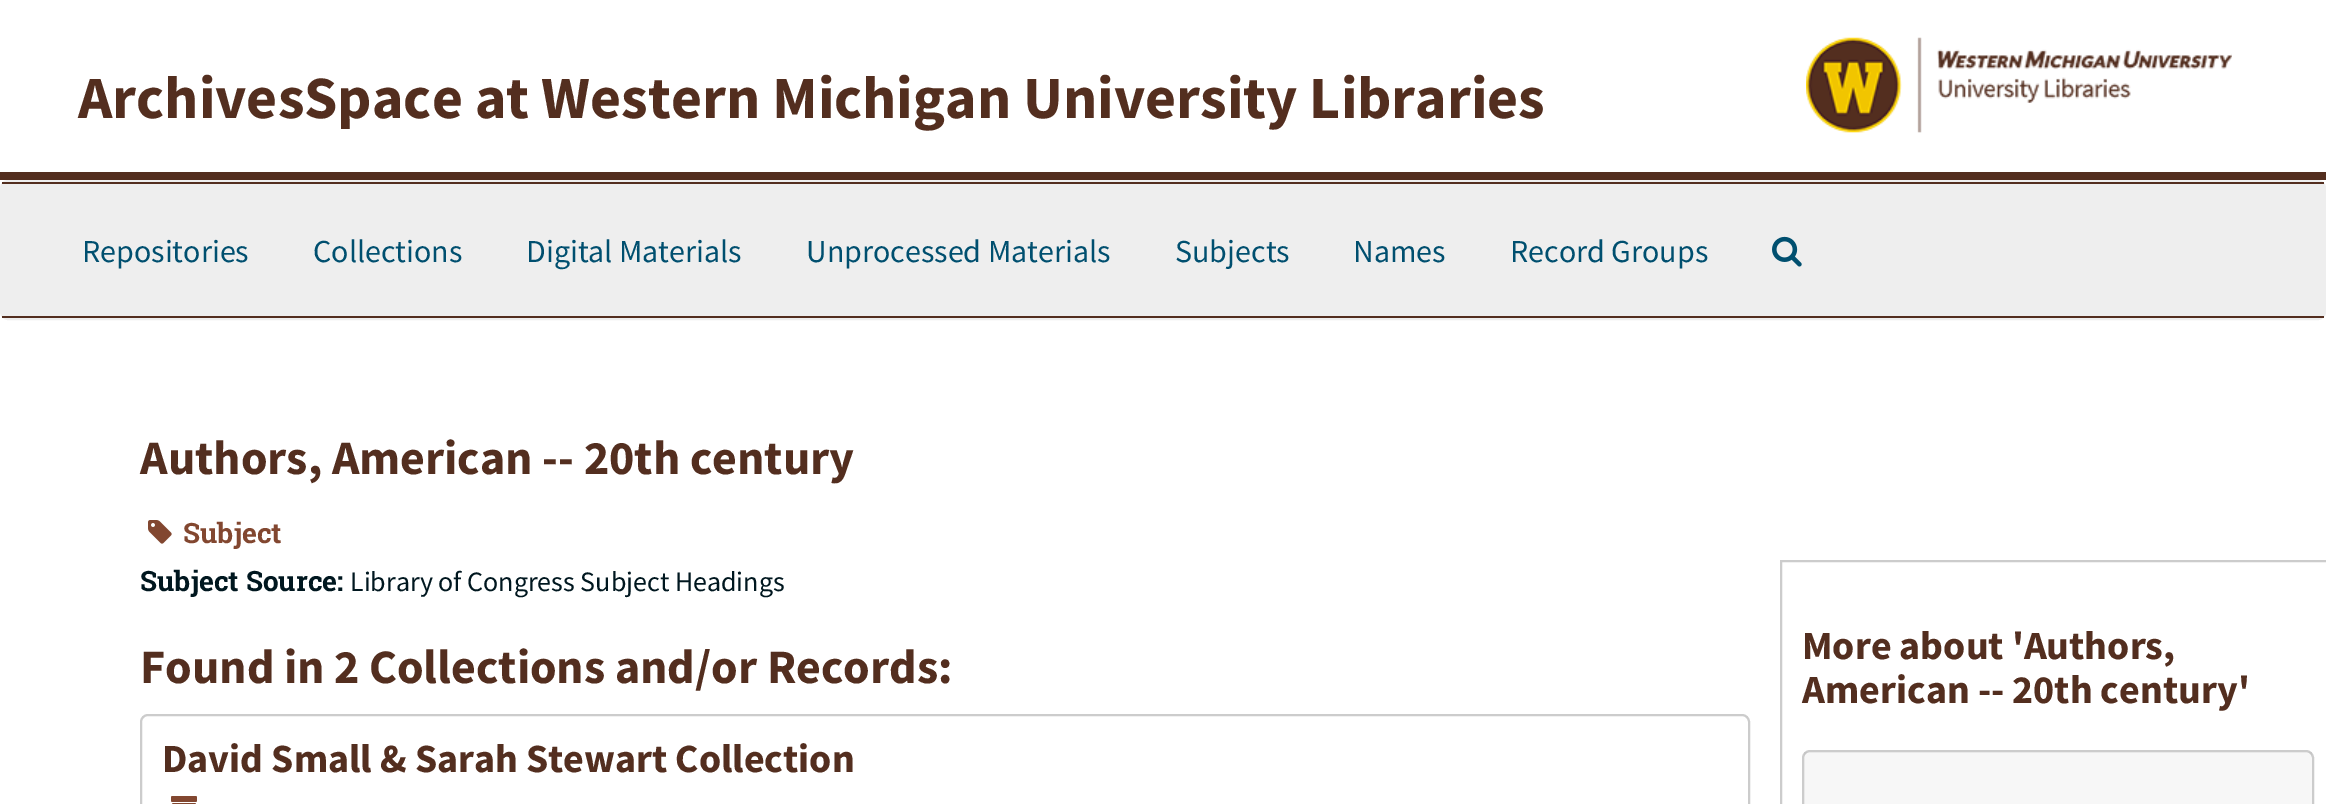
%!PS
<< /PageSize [2326 804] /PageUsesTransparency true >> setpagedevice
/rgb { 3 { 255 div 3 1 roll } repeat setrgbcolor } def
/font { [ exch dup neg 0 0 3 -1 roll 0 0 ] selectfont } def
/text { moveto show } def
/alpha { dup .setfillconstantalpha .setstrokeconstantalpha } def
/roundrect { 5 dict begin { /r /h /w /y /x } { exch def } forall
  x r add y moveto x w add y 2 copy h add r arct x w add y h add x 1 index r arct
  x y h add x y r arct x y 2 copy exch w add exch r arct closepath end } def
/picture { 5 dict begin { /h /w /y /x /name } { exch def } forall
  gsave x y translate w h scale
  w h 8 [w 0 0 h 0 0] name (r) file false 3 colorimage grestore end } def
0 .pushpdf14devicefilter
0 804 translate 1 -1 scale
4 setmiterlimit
255 255 255 rgb
0 0 2326 804 rectfill
83 46 31 rgb
0 172 2326 8 rectfill
(img_01.rgb) 1806 37 426 96 picture
238 238 238 rgb
2 setlinewidth
1 181 2324 138 7 roundrect stroke
2 184 2322 132 rectfill
83 46 31 rgb
2 182 2322 2 rectfill
2 316 2322 2 rectfill
(img_02.rgb) 1772 236 30 31 picture
(img_03.rgb) 148 520 24 24 picture
204 204 204 rgb
141 715 1608 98 7 roundrect stroke
(img_04.rgb) 171 796 26 8 picture
1781 561 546 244 rectstroke
1803 751 510 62 7 roundrect stroke
0.03 alpha
0 0 0 rgb
1804 752 508 52 rectfill
/SourceSansPro-Bold 60 font
1 alpha
83 46 31 rgb
(ArchivesSpace at Western Michigan University Libraries) 78 118 text
/SourceSansPro-Regular 32 font
0 79 111 rgb
(Repositories) 82 262 text
(Collections) 313 262 text
(Digital Materials) 526 262 text
(Unprocessed Materials) 806 262 text
(Subjects) 1175 262 text
(Names) 1353 262 text
(Record Groups) 1510 262 text
/SourceSansPro-Bold 48 font
83 46 31 rgb
(Authors, American -- 20th century) 140 474 text
/RobotoSlab-Bold 28 font
130 71 48 rgb
(Subject) 183 543 text
0 23 31 rgb
(Subject Source:) 140 591 text
/SourceSansPro-Regular 28 font
(Library of Congress Subject Headings) 350 591 text
/SourceSansPro-Bold 48 font
83 46 31 rgb
(Found in 2 Collections and/or Records:) 140 683 text
/SourceSansPro-Bold 40 font
(David Small & Sarah Stewart Collection) 162 772 text
(More about 'Authors,) 1802 659 text
(American -- 20th century') 1802 703 text
.poppdf14devicefilter showpage
